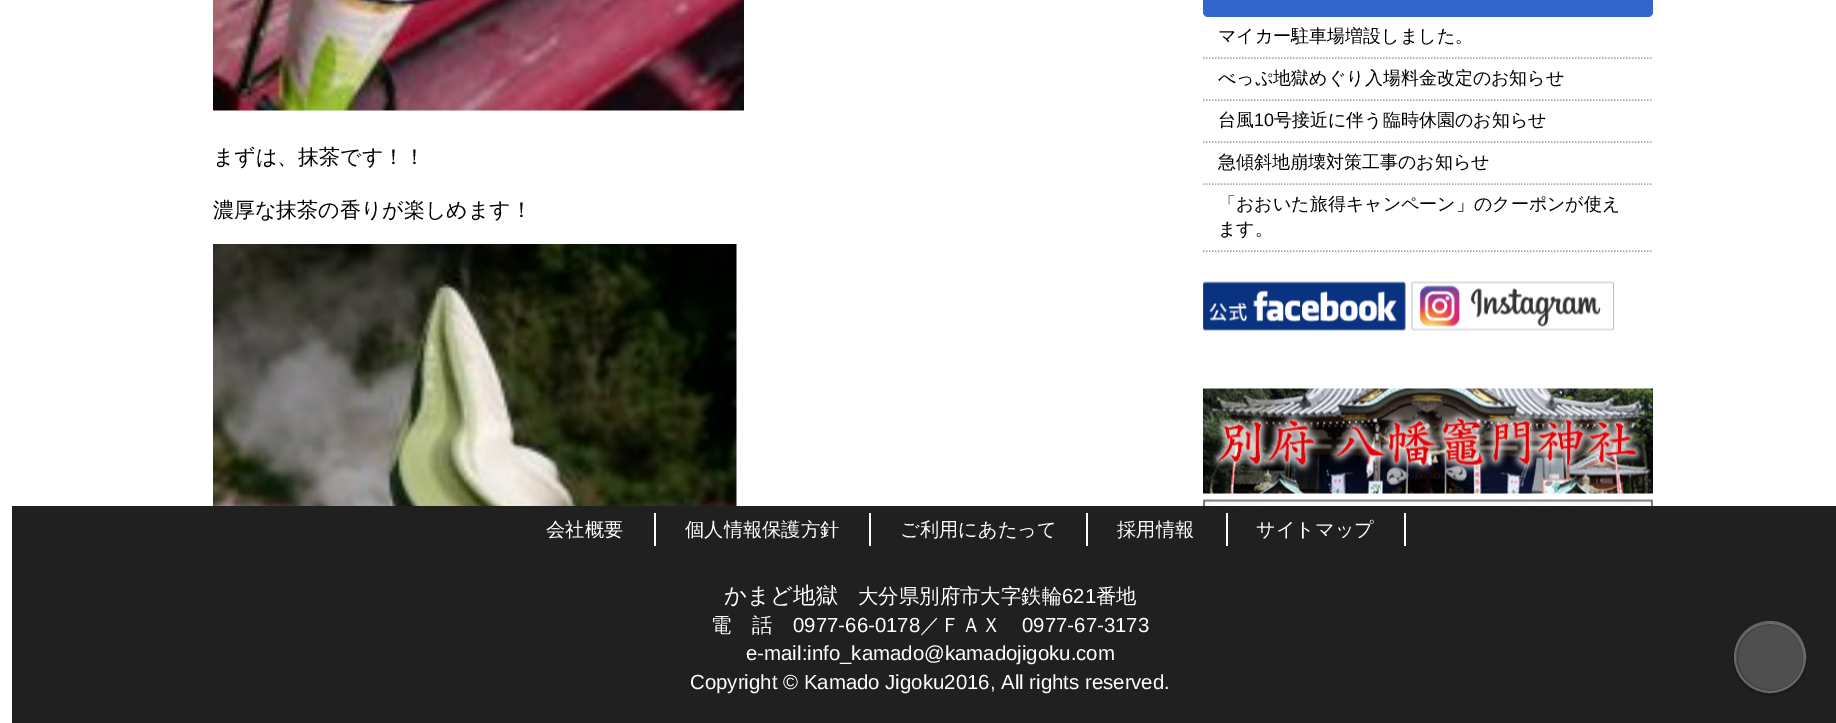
%!PS
<< /PageSize [1836 723] /PageUsesTransparency true >> setpagedevice
/rgb { 3 { 255 div 3 1 roll } repeat setrgbcolor } def
/font { [ exch dup neg 0 0 3 -1 roll 0 0 ] selectfont } def
/text { moveto show } def
/alpha { dup .setfillconstantalpha .setstrokeconstantalpha } def
/circle { newpath 0 360 arc closepath } def
/roundrect { 5 dict begin { /r /h /w /y /x } { exch def } forall
  x r add y moveto x w add y 2 copy h add r arct x w add y h add x 1 index r arct
  x y h add x y r arct x y 2 copy exch w add exch r arct closepath end } def
/shadow { 12 dict begin { /a /b /q /h /w /y /x } { exch def } forall gsave /was 0 def
  9 -2 -9 { dup b mul 4 div /e exch def 1 sub .425 mul 2.718 exch exp 1 add a .99 .min exch div /now exch def
    1 1 now sub 1 was sub div sub alpha /was now def
    w h .min e 2 mul add 0 gt { x e sub y e sub w e 2 mul add h e 2 mul add
      q e add b .6 mul add w h .min 2 div e add .min 0 .max roundrect fill } if } for grestore end } def
/picture { 5 dict begin { /h /w /y /x /name } { exch def } forall
  gsave x y translate w h scale
  w h 8 [w 0 0 h 0 0] name (r) file false 3 colorimage grestore end } def
0 .pushpdf14devicefilter
0 723 translate 1 -1 scale
4 setmiterlimit
255 255 255 rgb
0 0 1836 723 rectfill
(img_01.rgb) 213 0 531 111 picture
(img_02.rgb) 213 244 524 262 picture
51 102 204 rgb
1203 -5 450 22 5 roundrect fill
170 170 170 rgb
1.5 setlinewidth
[1.5 1.5] 0 setdash
1203 58 moveto 450 0 rlineto stroke
1203 100 moveto 450 0 rlineto stroke
1203 142 moveto 450 0 rlineto stroke
1203 184 moveto 450 0 rlineto stroke
1203 251 moveto 450 0 rlineto stroke
(img_03.rgb) 1203 281 203 50 picture
(img_04.rgb) 1411 281 203 50 picture
(img_05.rgb) 1203 388 450 106 picture
(img_06.rgb) 1203 499 450 7 picture
32 32 32 rgb
12 506 1824 217 rectfill
255 255 255 rgb
654 513 2 33 rectfill
869 513 2 33 rectfill
1086 513 2 33 rectfill
1226 513 2 33 rectfill
1404 513 2 33 rectfill
4 4 4 rgb
1734 623 72 72 36 2 0.4 shadow
79 79 79 rgb
1770.5 657.5 34.5 circle fill
0.4 alpha
224 224 224 rgb
1770 624 moveto 29 0 43 33 27 55 rcurveto 20 -24 -2 -62 -33 -55 rcurveto -7 1 -13 4 -18 9 rcurveto -6 7 -10 16 -10 25 rcurveto 0 -19 15 -34 34 -34 rcurveto closepath fill
0.2 alpha
4 4 4 rgb
2 setlinewidth
[] 0 setdash
1770.5 657.5 33.5 circle stroke
1 alpha
103 103 103 rgb
1770 657 35 circle stroke
/WenQuanYiZenHei-Medium 21 font
0 0 0 rgb
(まずは、抹茶です！！) 213 164 text
(濃厚な抹茶の香りが楽しめます！) 213 217 text
/WenQuanYiZenHei-Medium 18 font
(マイカー駐車場増設しました。) 1218 42 text
(べっぷ地獄めぐり入場料金改定のお知らせ) 1218 84 text
(台風) 1218 126 text
/LiberationSans-Regular 18 font
(10) 1254 126 text
/WenQuanYiZenHei-Medium 18 font
(号接近に伴う臨時休園のお知らせ) 1274 126 text
(急傾斜地崩壊対策工事のお知らせ) 1218 168 text
(「おおいた旅得キャンペーン」のクーポンが使え) 1218 210 text
(ます。) 1218 235 text
/WenQuanYiZenHei-Medium 19.25 font
255 255 255 rgb
(会社概要) 546 536 text
(個人情報保護方針) 685 536 text
(ご利用にあたって) 900 536 text
(採用情報) 1117 536 text
(サイトマップ) 1256 536 text
/WenQuanYiZenHei-Medium 22.5 font
(かまど地獄) 724 603 text
/WenQuanYiZenHei-Medium 20.4 font
(大分県別府市大字鉄輪) 858 603 text
/LiberationSans-Regular 20.4 font
(621) 1062 603 text
/WenQuanYiZenHei-Medium 20.4 font
(番地) 1096 603 text
(電　話) 711 632 text
/LiberationSans-Regular 20.4 font
(0977-66-0178) 793 632 text
/WenQuanYiZenHei-Medium 20.4 font
(／ＦＡＸ) 920 632 text
/LiberationSans-Regular 20.4 font
(0977-67-3173) 1022 632 text
(e-mail:info_kamado@kamadojigoku.com) 746 660 text
(Copyright © Kamado Jigoku2016, All rights reserved.) 690 689 text
.poppdf14devicefilter showpage
